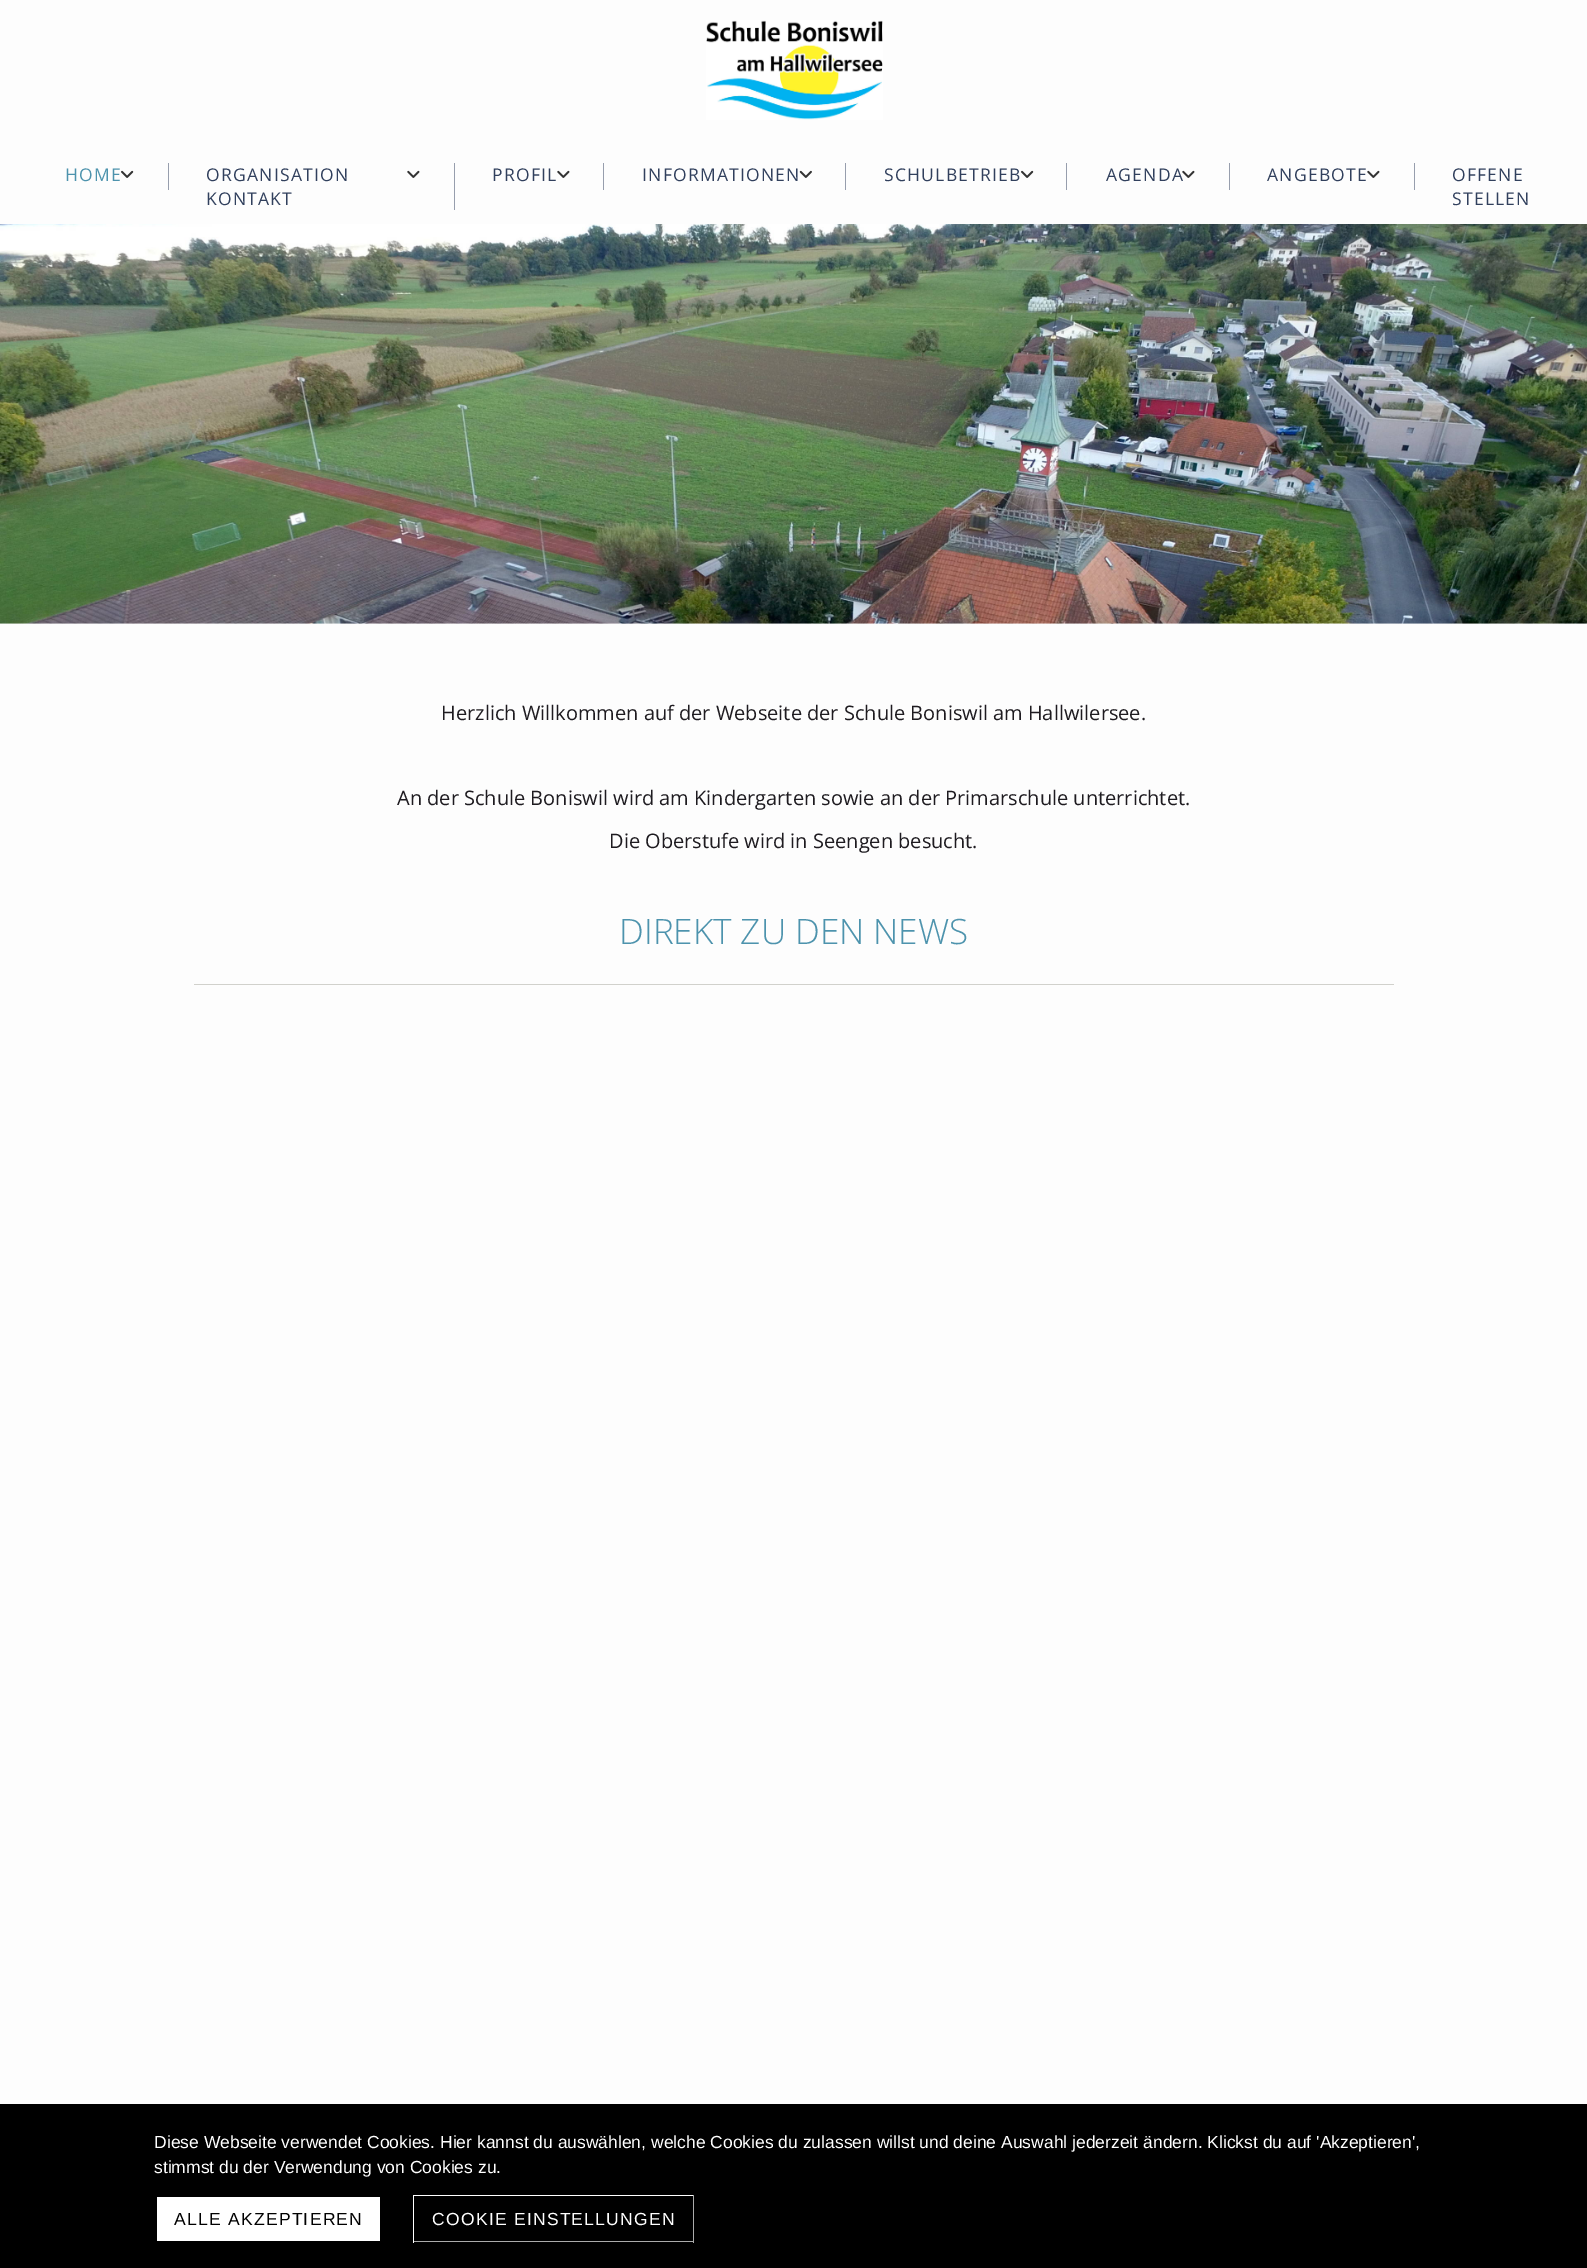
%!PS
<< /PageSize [1587 2268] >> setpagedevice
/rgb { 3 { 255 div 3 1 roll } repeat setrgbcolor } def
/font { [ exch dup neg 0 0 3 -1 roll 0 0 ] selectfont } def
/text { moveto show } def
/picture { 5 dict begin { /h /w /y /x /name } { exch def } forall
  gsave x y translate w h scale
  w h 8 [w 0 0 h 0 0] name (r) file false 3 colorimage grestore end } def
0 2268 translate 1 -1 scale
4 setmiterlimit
253 253 253 rgb
0 0 1587 2268 rectfill
(img_01.rgb) 706 20 177 100 picture
151 158 173 rgb
168 163 1 27 rectfill
(img_02.rgb) 121 170 13 8 picture
454 163 1 47 rectfill
(img_03.rgb) 407 170 13 8 picture
603 163 1 27 rectfill
(img_03.rgb) 557 170 13 8 picture
845 163 1 27 rectfill
(img_04.rgb) 799 170 13 8 picture
1066 163 1 27 rectfill
(img_02.rgb) 1021 170 13 8 picture
1229 163 1 27 rectfill
1414 163 1 27 rectfill
(img_03.rgb) 1367 170 13 8 picture
(img_05.rgb) 0 224 1587 400 picture
209 209 204 rgb
194 984 1200 1 rectfill
0 0 0 rgb
0 2104 1587 164 rectfill
255 255 255 rgb
157 2197 223 44 rectfill
413 2195 281 1 rectfill
170 170 170 rgb
693 2195 1 48 rectfill
413 2241 281 1 rectfill
255 255 255 rgb
413 2195 1 48 rectfill
/OpenSans-Regular 17.5 font
77 147 173 rgb
65 181 moveto 1.25 0 (HOME) ashow
49 64 93 rgb
206 181 moveto 1.25 0 (ORGANISATION) ashow
206 205 moveto 1.25 0 (KONTAKT) ashow
492 181 moveto 1.25 0 (PROFIL) ashow
642 181 moveto 1.25 0 (INFORMATIONEN) ashow
884 181 moveto 1.25 0 (SCHULBETRIEB) ashow
1106 181 moveto 1.25 0 (AGENDA) ashow
(img_03.rgb) 1182 170 13 8 picture
1267 181 moveto 1.25 0 (ANGEBOTE) ashow
1452 181 moveto 1.25 0 (OFFENE) ashow
1452 205 moveto 1.25 0 (STELLEN) ashow
/OpenSans-Regular 20 font
30 27 32 rgb
(Herzlich Willkommen auf der Webseite der Schule Boniswil am Hallwilersee.) 441 720 text
(An der Schule Boniswil wird am Kindergarten sowie an der Primarschule unterrichtet.) 397 805 text
(Die Oberstufe wird in Seengen besucht.) 609 848 text
/OpenSans-Light 35 font
77 147 173 rgb
(DIREKT ZU DEN NEWS) 619 944 text
/LiberationSans-Regular 17.5 font
255 255 255 rgb
(Diese Webseite verwendet Cookies. Hier kannst du auswählen, welche Cookies du zulassen willst und deine Auswahl jederzeit ändern. Klickst du auf 'Akzeptieren',) 154 2148 text
(stimmst du der Verwendung von Cookies zu.) 154 2173 text
0 0 0 rgb
174 2225 moveto 1.25 0 (ALLE AKZEPTIEREN) ashow
255 255 255 rgb
432 2225 moveto 1.25 0 (COOKIE EINSTELLUNGEN) ashow
showpage
